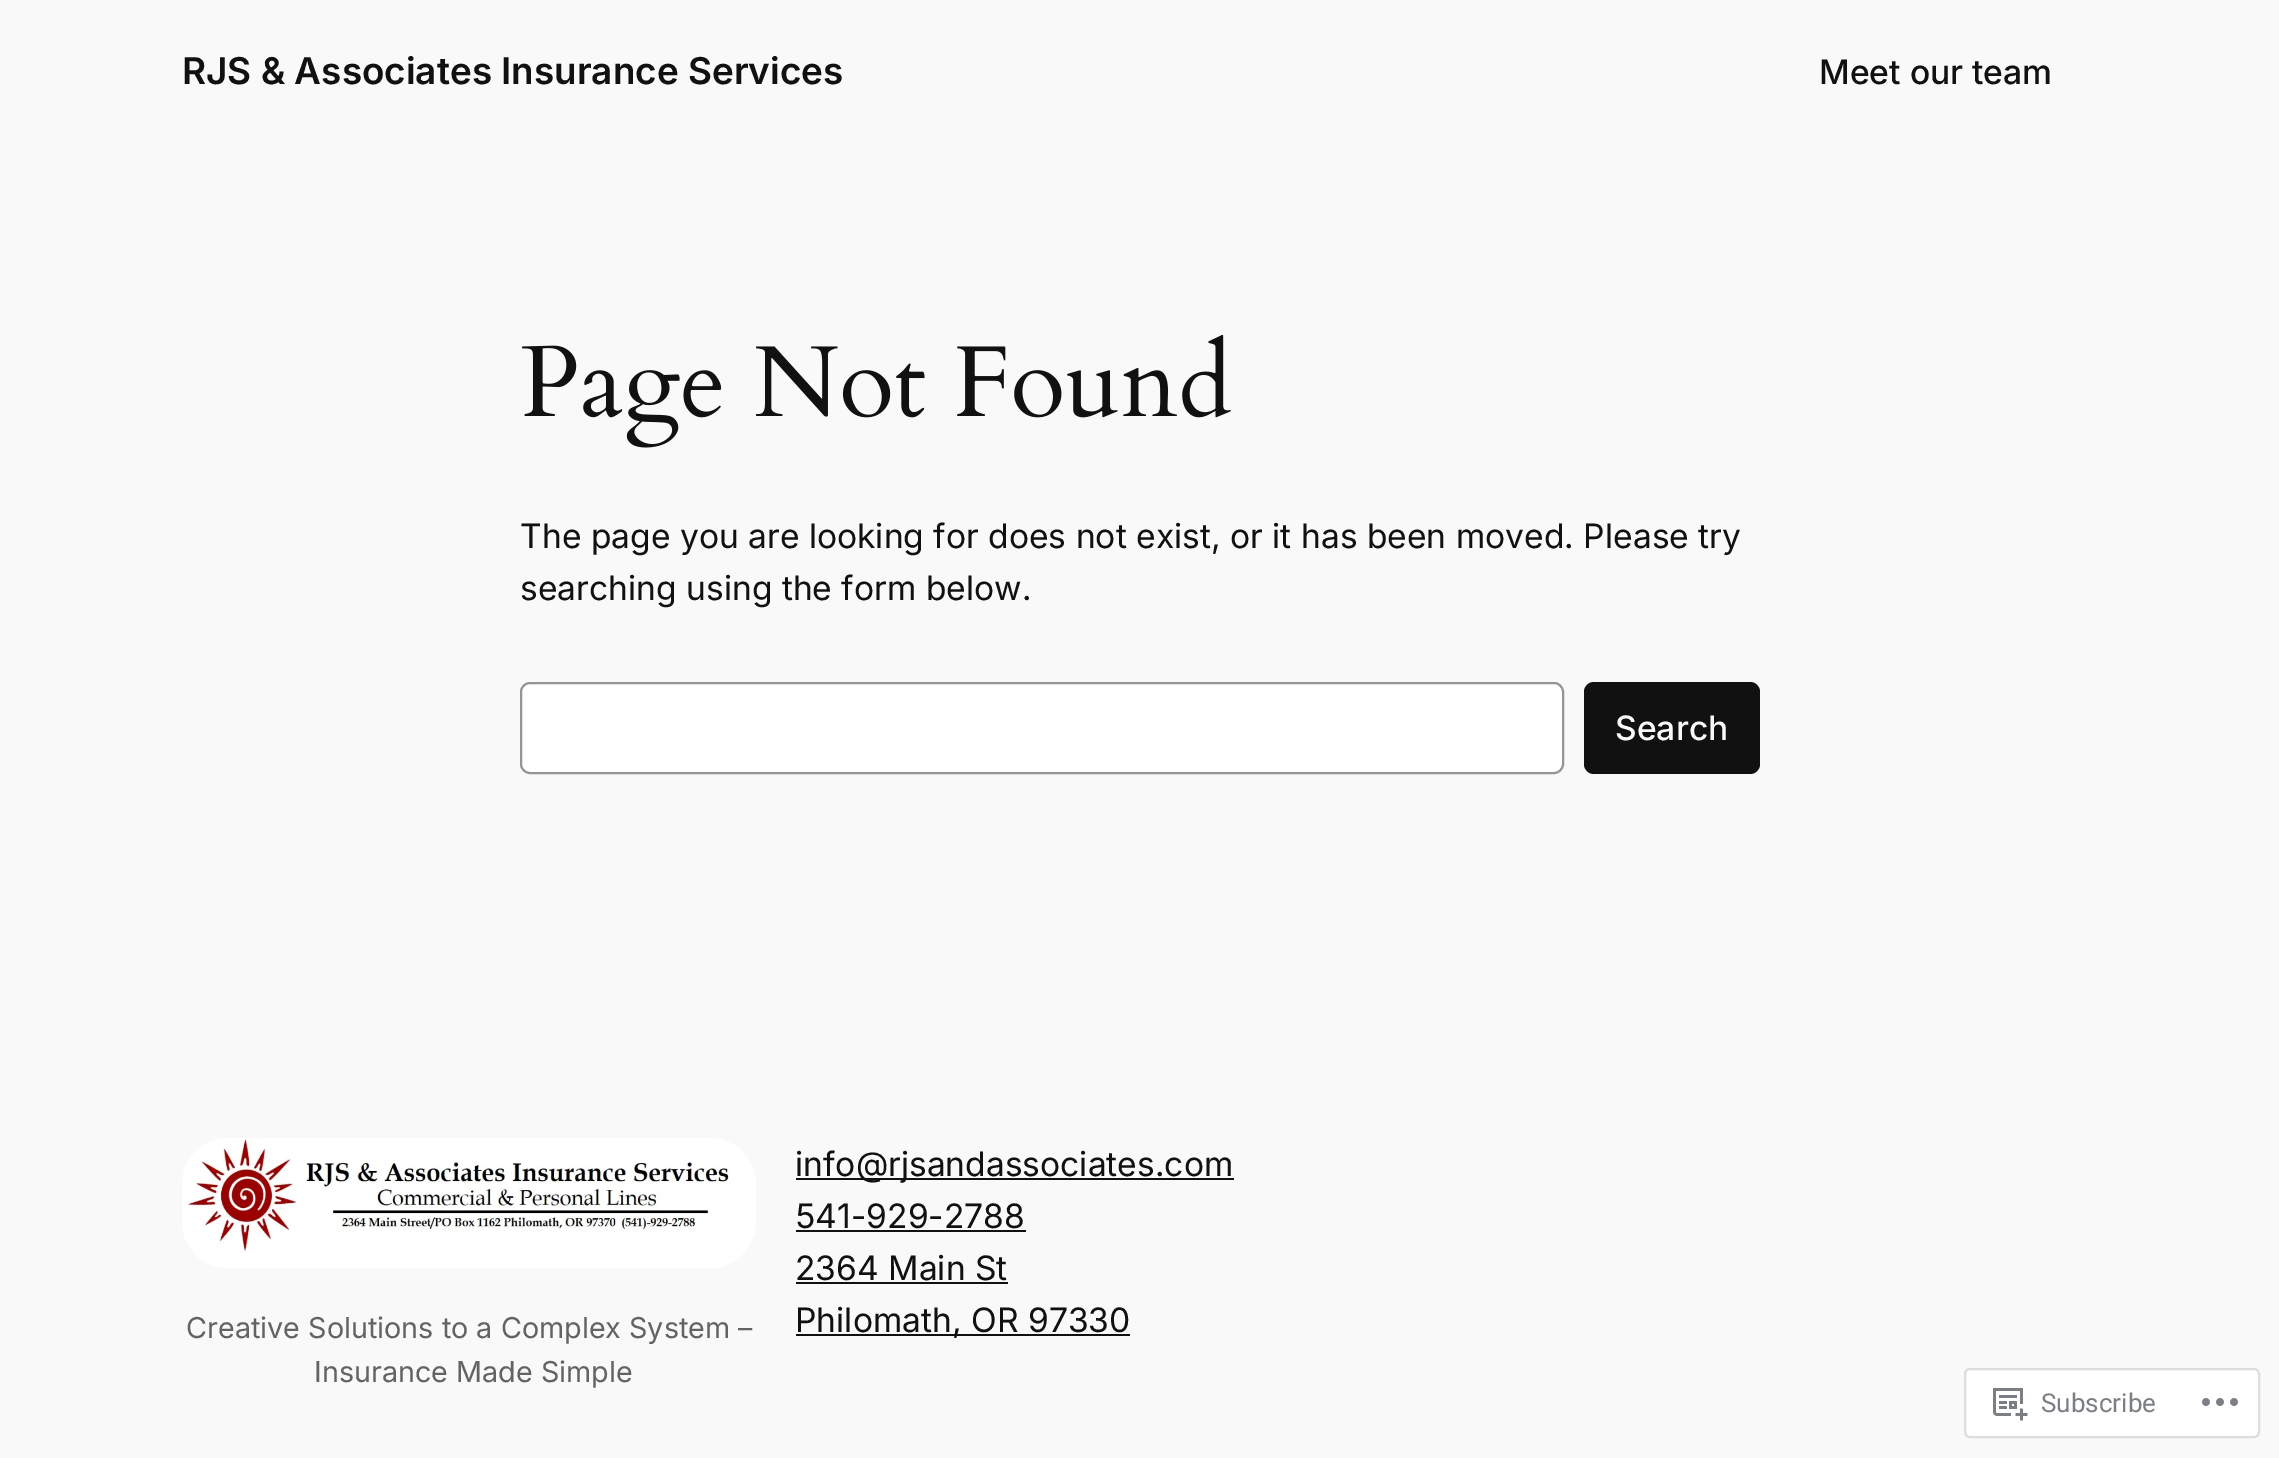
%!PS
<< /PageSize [2279 1458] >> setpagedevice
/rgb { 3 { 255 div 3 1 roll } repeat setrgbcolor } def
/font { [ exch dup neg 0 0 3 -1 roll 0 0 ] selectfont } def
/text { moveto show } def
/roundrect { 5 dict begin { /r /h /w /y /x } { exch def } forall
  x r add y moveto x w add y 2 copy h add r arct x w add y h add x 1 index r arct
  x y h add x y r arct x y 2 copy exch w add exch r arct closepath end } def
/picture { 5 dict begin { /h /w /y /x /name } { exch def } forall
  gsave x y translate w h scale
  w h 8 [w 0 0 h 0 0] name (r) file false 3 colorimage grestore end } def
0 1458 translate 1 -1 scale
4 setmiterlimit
249 249 249 rgb
0 0 2279 1458 rectfill
(img_01.rgb) 522 334 709 114 picture
255 255 255 rgb
521 683 1042 90 9 roundrect gsave fill grestore
148 148 148 rgb
2 setlinewidth
stroke
17 17 17 rgb
1584 682 176 92 10 roundrect fill
796 1178 438 2 rectfill
796 1230 230 2 rectfill
796 1282 212 2 rectfill
796 1334 334 2 rectfill
(img_02.rgb) 182 1138 574 130 picture
255 255 255 rgb
1965 1369 294 68 5 roundrect gsave fill grestore
221 221 223 rgb
stroke
(img_03.rgb) 1993 1388 35 33 picture
(img_04.rgb) 2202 1398 36 8 picture
/Inter-SemiBold 36.9 font
17 17 17 rgb
(RJS & Associates Insurance Services) 182 84 text
/Inter-Medium 33.6 font
(Meet our team) 1819 84 text
/Inter-Regular 33.6 font
(The page you are looking for does not exist, or it has been moved. Please try) 520 548 text
(searching using the form below.) 520 600 text
/Inter-Medium 33.6 font
249 249 249 rgb
(Search) 1615 740 text
/Inter-Regular 33.6 font
17 17 17 rgb
(info@rjsandassociates.com) 795 1176 text
(541-929-2788) 795 1228 text
(2364 Main St) 795 1280 text
(Philomath, OR 97330) 795 1332 text
/Inter-Regular 28.75 font
99 99 99 rgb
(Creative Solutions to a Complex System –) 186 1338 text
(Insurance Made Simple) 314 1382 text
/Roboto-Regular 26 font
123 127 132 rgb
(Subscribe) 2041 1412 text
showpage
